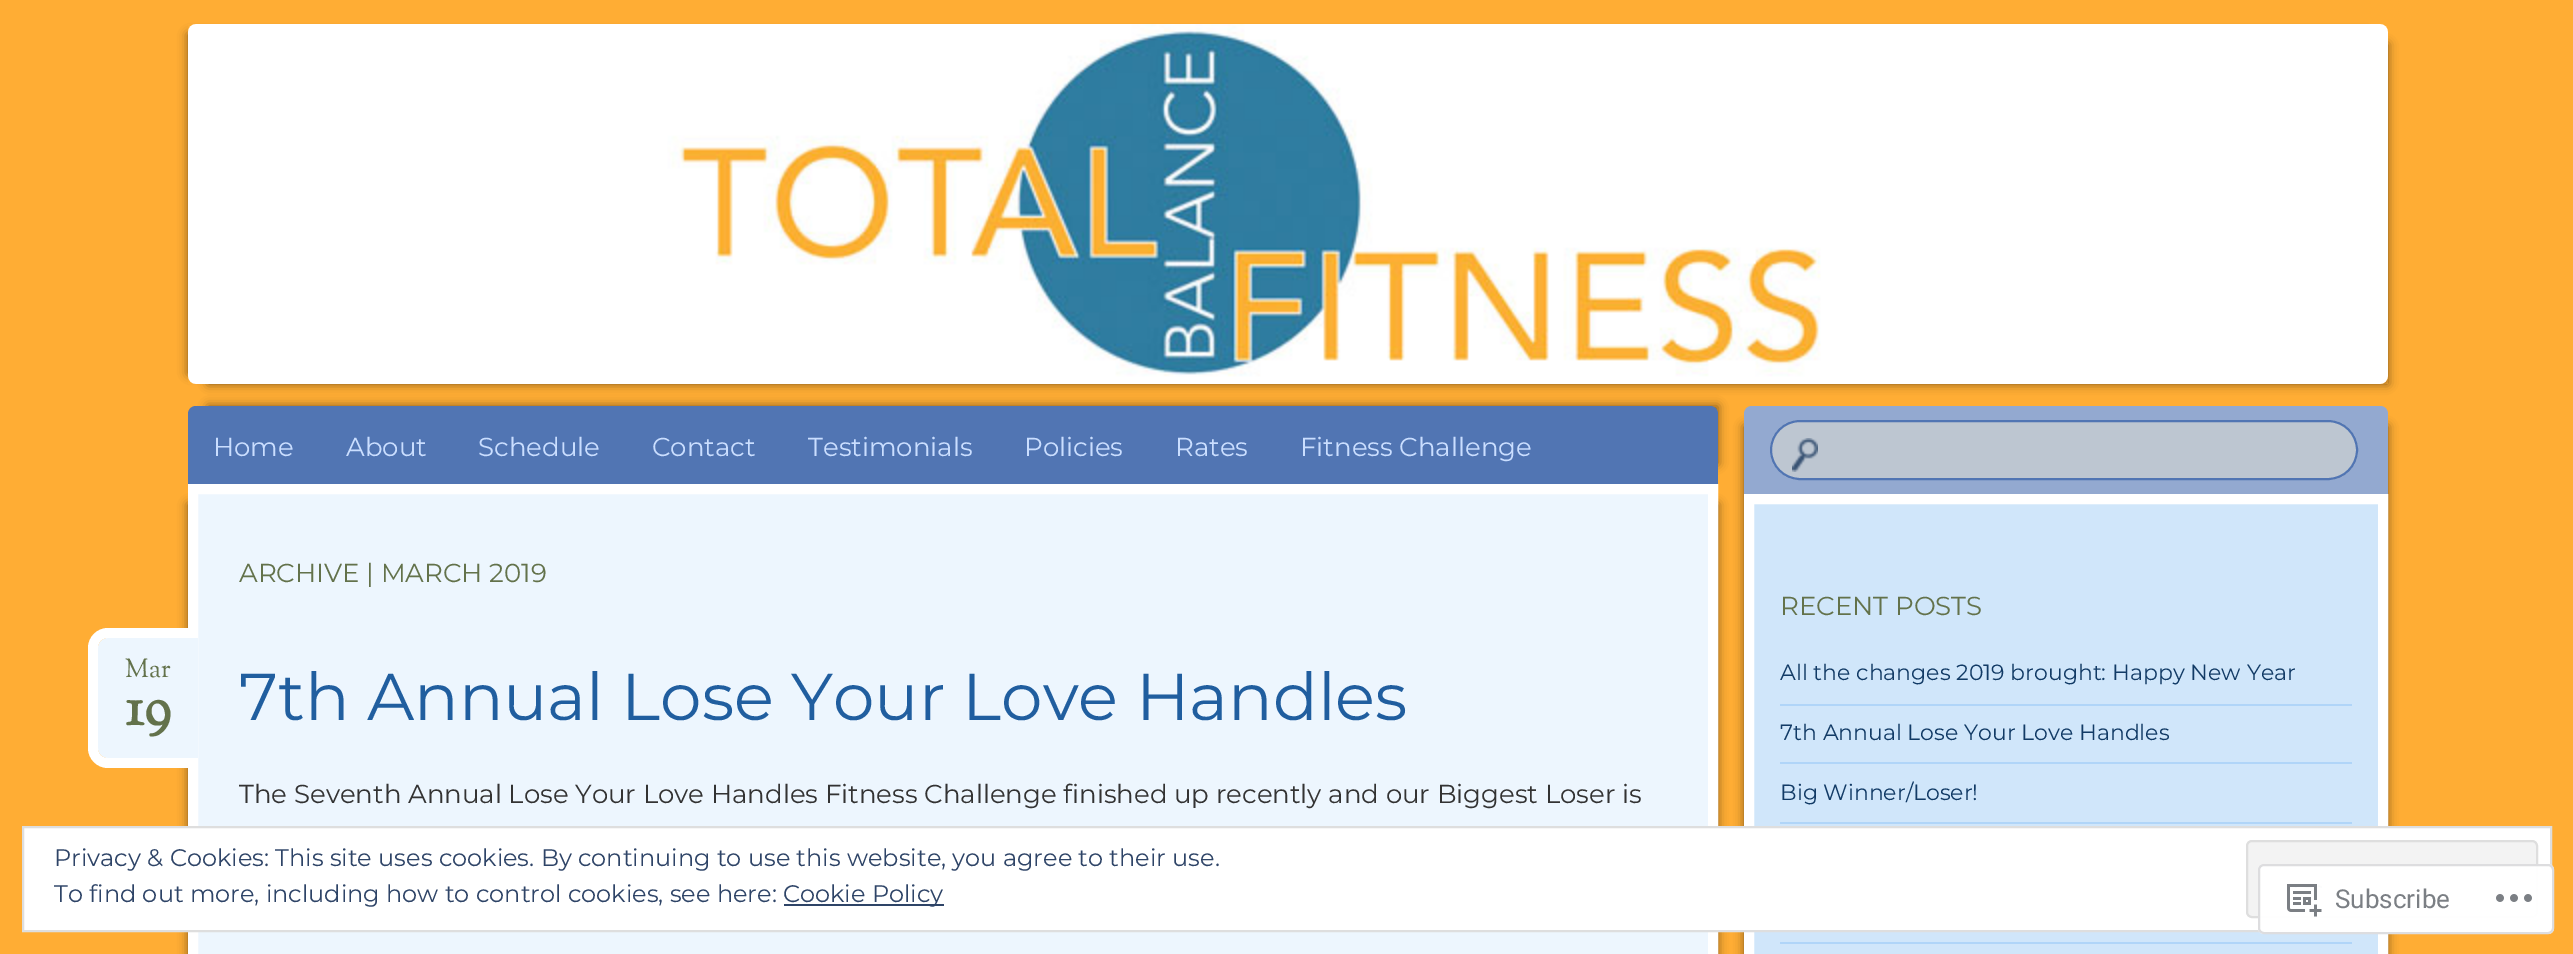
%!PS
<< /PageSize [2573 954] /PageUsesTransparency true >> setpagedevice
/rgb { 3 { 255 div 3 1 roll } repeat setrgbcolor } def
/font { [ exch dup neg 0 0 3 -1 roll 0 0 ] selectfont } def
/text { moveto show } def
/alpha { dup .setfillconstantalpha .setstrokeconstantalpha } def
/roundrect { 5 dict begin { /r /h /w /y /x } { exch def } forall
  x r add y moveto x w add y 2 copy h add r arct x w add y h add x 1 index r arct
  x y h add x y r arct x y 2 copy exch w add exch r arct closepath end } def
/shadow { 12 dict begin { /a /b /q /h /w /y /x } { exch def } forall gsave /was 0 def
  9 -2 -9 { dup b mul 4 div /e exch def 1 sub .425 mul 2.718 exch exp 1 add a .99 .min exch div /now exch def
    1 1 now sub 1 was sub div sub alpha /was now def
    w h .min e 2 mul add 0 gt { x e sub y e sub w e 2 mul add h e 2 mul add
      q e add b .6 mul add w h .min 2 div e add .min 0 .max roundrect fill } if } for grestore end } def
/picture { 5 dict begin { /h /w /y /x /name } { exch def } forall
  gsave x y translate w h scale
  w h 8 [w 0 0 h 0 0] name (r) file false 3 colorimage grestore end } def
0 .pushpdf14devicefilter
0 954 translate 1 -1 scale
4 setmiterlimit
255 173 52 rgb
0 0 2573 954 rectfill
0 0 0 rgb
188 34 2180 340 0 5 0.5 shadow
208 44 2180 340 0 5 0.5 shadow
(img_01.rgb) 188 24 2200 360 picture
208 406 1510 58 0 5 0.5 shadow
81 117 179 rgb
196 406 moveto 1514 0 rlineto 4.5 0 8 3.5 8 8 rcurveto 0 70 rlineto -1530 0 rlineto 0 -70 rlineto 0 -4.5 3.5 -8 8 -8 rcurveto closepath fill
0 0 0 rgb
188 504 1510 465 0 5 0.5 shadow
208 504 1510 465 0 5 0.5 shadow
237 246 254 rgb
193 489 moveto 1520 0 rlineto 0 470 rlineto -1520 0 rlineto closepath gsave fill grestore
255 255 255 rgb
10 setlinewidth
stroke
237 246 254 rgb
108 638 moveto 90 0 rlineto 0 120 rlineto -90 0 rlineto -5.5 0 -10 -4.5 -10 -10 rcurveto 0 -100 rlineto 0 -5.5 4.5 -10 10 -10 rcurveto closepath fill
255 255 255 rgb
108 628 moveto 90 0 rlineto 0 140 rlineto -90 0 rlineto -11 0 -20 -9 -20 -20 rcurveto 0 -100 rlineto 0 -11 9 -20 20 -20 rcurveto closepath 108 638 moveto 90 0 rlineto 0 120 rlineto -90 0 rlineto -6 0 -10 -4 -10 -10 rcurveto 0 -100 rlineto 0 -6 4 -10 10 -10 rcurveto closepath eofill
0 0 0 rgb
1744 426 624 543 0 5 0.5 shadow
1764 426 624 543 0 5 0.5 shadow
147 169 208 rgb
1752 406 moveto 628 0 rlineto 4.5 0 8 3.5 8 8 rcurveto 0 80 rlineto -644 0 rlineto 0 -80 rlineto 0 -4.5 3.5 -8 8 -8 rcurveto closepath fill
189 198 209 rgb
1770 420 588 60 30 roundrect fill
(img_02.rgb) 1792 438 26 34 picture
81 117 179 rgb
2 setlinewidth
1771 421 586 58 29 roundrect stroke
208 230 250 rgb
1749 499 moveto 634 0 rlineto 0 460 rlineto -634 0 rlineto closepath gsave fill grestore
255 255 255 rgb
10 setlinewidth
stroke
176 213 248 rgb
1780 704 572 2 rectfill
1780 762 572 2 rectfill
1780 822 572 2 rectfill
1780 942 572 2 rectfill
255 255 255 rgb
23 827 moveto 2528 0 rlineto 0 104 rlineto -2528 0 rlineto closepath gsave fill grestore
222 222 222 rgb
2 setlinewidth
stroke
243 243 243 rgb
2247 841 290 76 5 roundrect gsave fill grestore
222 222 222 rgb
stroke
46 68 103 rgb
784 904 160 2 rectfill
0.98 alpha
255 255 255 rgb
2258 864 296 70 6 roundrect fill
220 220 222 rgb
2259 865 294 68 5 roundrect stroke
1 alpha
(img_03.rgb) 2287 884 35 33 picture
(img_04.rgb) 2496 894 36 8 picture
/Montserrat-Regular 26 font
202 222 255 rgb
(Home) 213 456 text
(About) 346 456 text
(Schedule) 478 456 text
(Contact) 652 456 text
(Testimonials) 808 456 text
(Policies) 1024 456 text
(Rates) 1175 456 text
(Fitness Challenge) 1300 456 text
99 114 75 rgb
(ARCHIVE | MARCH 2019) 239 582 text
/SortsMillGoudy-Regular 26 font
(Mar) 125 677 text
/SortsMillGoudy-Bold 56 font
(19) 125 725 text
/Montserrat-Regular 66 font
32 94 159 rgb
(7th Annual Lose Your Love Handles) 239 720 text
/Montserrat-Regular 26 font
51 51 51 rgb
(The Seventh Annual Lose Your Love Handles Fitness Challenge finished up recently and our Biggest Loser is) 239 803 text
99 114 75 rgb
(RECENT POSTS) 1780 615 text
/Montserrat-Regular 22 font
18 59 102 rgb
(All the changes 2019 brought: Happy New Year) 1780 680 text
(7th Annual Lose Your Love Handles) 1780 740 text
(Big Winner/Loser!) 1780 800 text
/Montserrat-Regular 24 font
46 68 103 rgb
(Privacy & Cookies: This site uses cookies. By continuing to use this website, you agree to their use.) 54 866 text
(To find out more, including how to control cookies, see here:) 54 902 text
(Cookie Policy) 783 902 text
/Roboto-Regular 26 font
123 127 132 rgb
(Subscribe) 2335 908 text
.poppdf14devicefilter showpage
